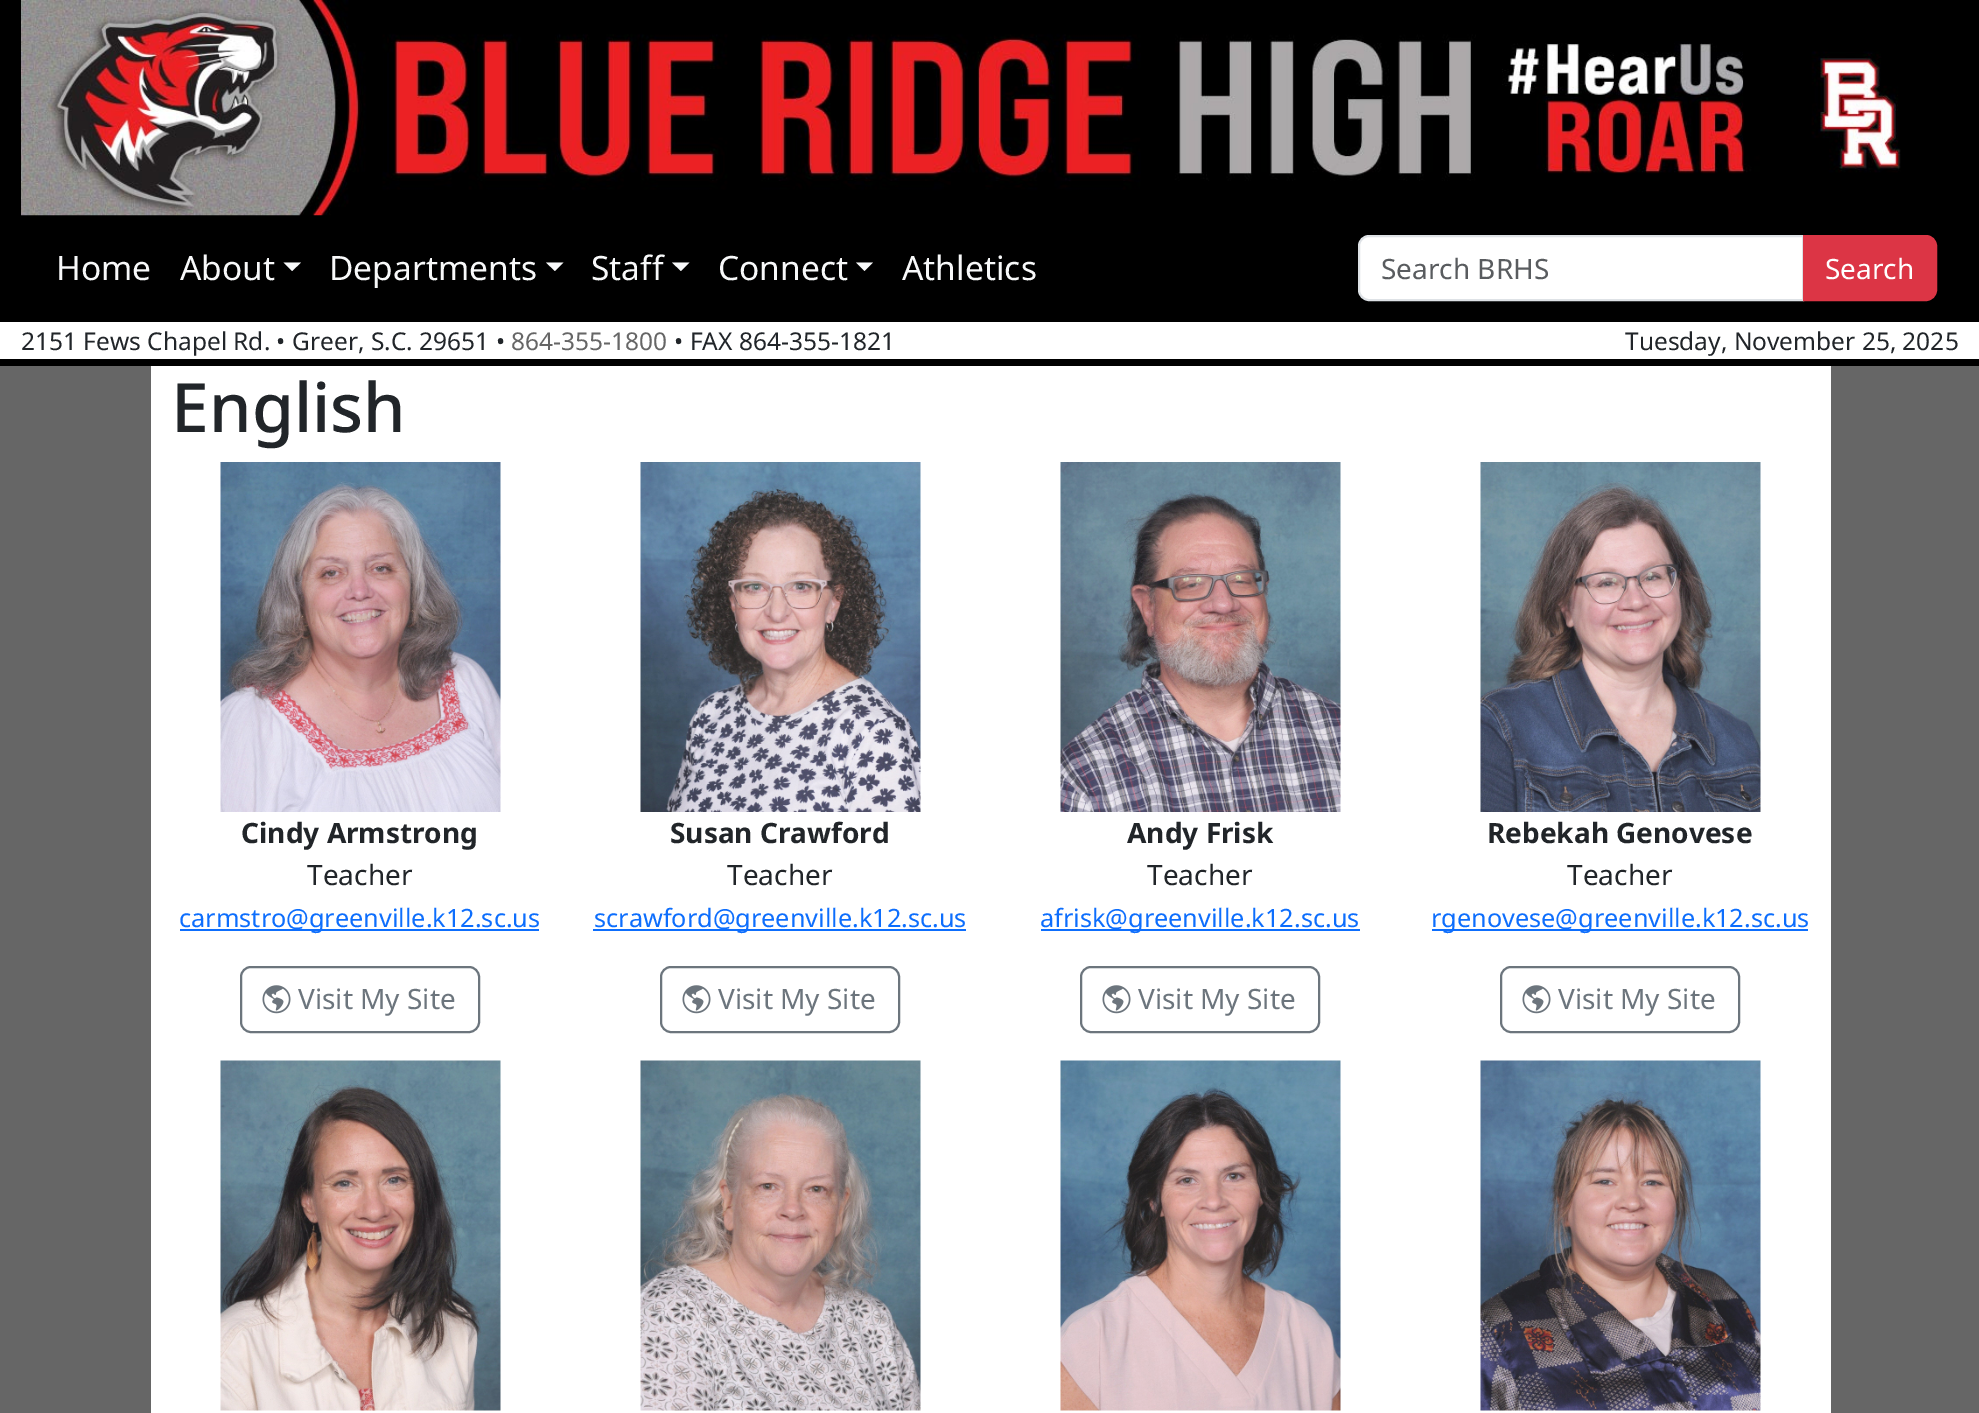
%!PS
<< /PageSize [1979 1413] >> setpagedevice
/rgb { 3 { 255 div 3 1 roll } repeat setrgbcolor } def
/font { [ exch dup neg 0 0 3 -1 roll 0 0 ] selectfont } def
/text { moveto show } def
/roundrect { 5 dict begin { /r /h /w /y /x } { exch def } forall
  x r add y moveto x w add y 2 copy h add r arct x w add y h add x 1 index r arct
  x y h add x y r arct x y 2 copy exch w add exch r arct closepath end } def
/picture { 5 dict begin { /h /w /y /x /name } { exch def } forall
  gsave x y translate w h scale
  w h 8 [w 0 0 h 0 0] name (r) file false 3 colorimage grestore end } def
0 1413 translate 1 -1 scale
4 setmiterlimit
102 102 102 rgb
0 0 1979 1413 rectfill
0 0 0 rgb
0 0 1979 322 rectfill
(img_01.rgb) 21 0 1880 216 picture
248 249 250 rgb
283.5 262.5 moveto 17.5 0 rlineto -9 8.5 rlineto closepath fill
546 262.5 moveto 17.5 0 rlineto -8.5 8.5 rlineto closepath fill
672 262.5 moveto 17.5 0 rlineto -8.5 8.5 rlineto closepath fill
856 262.5 moveto 17 0 rlineto -8.5 8.5 rlineto closepath fill
255 255 255 rgb
1369 236 moveto 434 0 rlineto 0 64 rlineto -434 0 rlineto -5.5 0 -10 -4.5 -10 -10 rcurveto 0 -44 rlineto 0 -5.5 4.5 -10 10 -10 rcurveto closepath gsave fill grestore
222 226 230 rgb
2 setlinewidth
stroke
220 53 69 rgb
1804 236 moveto 122 0 rlineto 5.5 0 10 4.5 10 10 rcurveto 0 44 rlineto 0 5.5 -4.5 10 -10 10 rcurveto -122 0 rlineto closepath gsave fill grestore
stroke
255 255 255 rgb
0 322 1979 37 rectfill
0 0 0 rgb
0 359 1979 7 rectfill
255 255 255 rgb
151 366 1680 1047 rectfill
(img_02.rgb) 220 462 281 350 picture
13 110 253 rgb
180 929 359 2 rectfill
108 117 125 rgb
241 967 238 65 10 roundrect stroke
(img_03.rgb) 262 985 29 29 picture
(img_04.rgb) 640 462 281 350 picture
13 110 253 rgb
593 929 373 2 rectfill
108 117 125 rgb
661 967 238 65 10 roundrect stroke
(img_03.rgb) 682 985 29 29 picture
(img_05.rgb) 1060 462 281 350 picture
13 110 253 rgb
1041 929 319 2 rectfill
108 117 125 rgb
1081 967 238 65 10 roundrect stroke
(img_03.rgb) 1102 985 29 29 picture
(img_06.rgb) 1480 462 281 350 picture
13 110 253 rgb
1432 929 376 2 rectfill
108 117 125 rgb
1501 967 238 65 10 roundrect stroke
(img_03.rgb) 1522 985 29 29 picture
(img_07.rgb) 220 1060 281 351 picture
(img_08.rgb) 640 1060 281 351 picture
(img_09.rgb) 1060 1060 281 351 picture
(img_10.rgb) 1480 1060 281 351 picture
/NotoSans-Regular 33.5 font
248 249 250 rgb
(Home) 56 280 text
(About) 180 280 text
(Departments) 329 280 text
(Staff) 591 280 text
(Connect) 718 280 text
(Athletics) 902 280 text
/NotoSans-Regular 28 font
89 92 95 rgb
(Search BRHS) 1381 279 text
255 255 255 rgb
(Search) 1825 279 text
/NotoSans-Regular 24.5 font
33 37 41 rgb
(2151 Fews Chapel Rd. • Greer, S.C. 29651 •) 21 350 text
102 102 102 rgb
(864-355-1800) 511 350 text
33 37 41 rgb
(• FAX 864-355-1821) 674 350 text
(Tuesday, November 25, 2025) 1625 350 text
/NotoSans-Medium 68 font
(English) 171 432 text
/NotoSans-Bold 28 font
(Cindy Armstrong) 241 843 text
/NotoSans-Regular 28 font
(Teacher) 307 885 text
/NotoSans-Regular 25.25 font
13 110 253 rgb
(carmstro@greenville.k12.sc.us) 179 927 text
/NotoSans-Regular 28 font
108 117 125 rgb
(Visit My Site) 298 1009 text
/NotoSans-Bold 28 font
33 37 41 rgb
(Susan Crawford) 670 843 text
/NotoSans-Regular 28 font
(Teacher) 727 885 text
/NotoSans-Regular 25.25 font
13 110 253 rgb
(scrawford@greenville.k12.sc.us) 594 927 text
/NotoSans-Regular 28 font
108 117 125 rgb
(Visit My Site) 718 1009 text
/NotoSans-Bold 28 font
33 37 41 rgb
(Andy Frisk) 1127 843 text
/NotoSans-Regular 28 font
(Teacher) 1147 885 text
/NotoSans-Regular 25.25 font
13 110 253 rgb
(afrisk@greenville.k12.sc.us) 1040 927 text
/NotoSans-Regular 28 font
108 117 125 rgb
(Visit My Site) 1138 1009 text
/NotoSans-Bold 28 font
33 37 41 rgb
(Rebekah Genovese) 1487 843 text
/NotoSans-Regular 28 font
(Teacher) 1567 885 text
/NotoSans-Regular 25.25 font
13 110 253 rgb
(rgenovese@greenville.k12.sc.us) 1431 927 text
/NotoSans-Regular 28 font
108 117 125 rgb
(Visit My Site) 1558 1009 text
showpage
